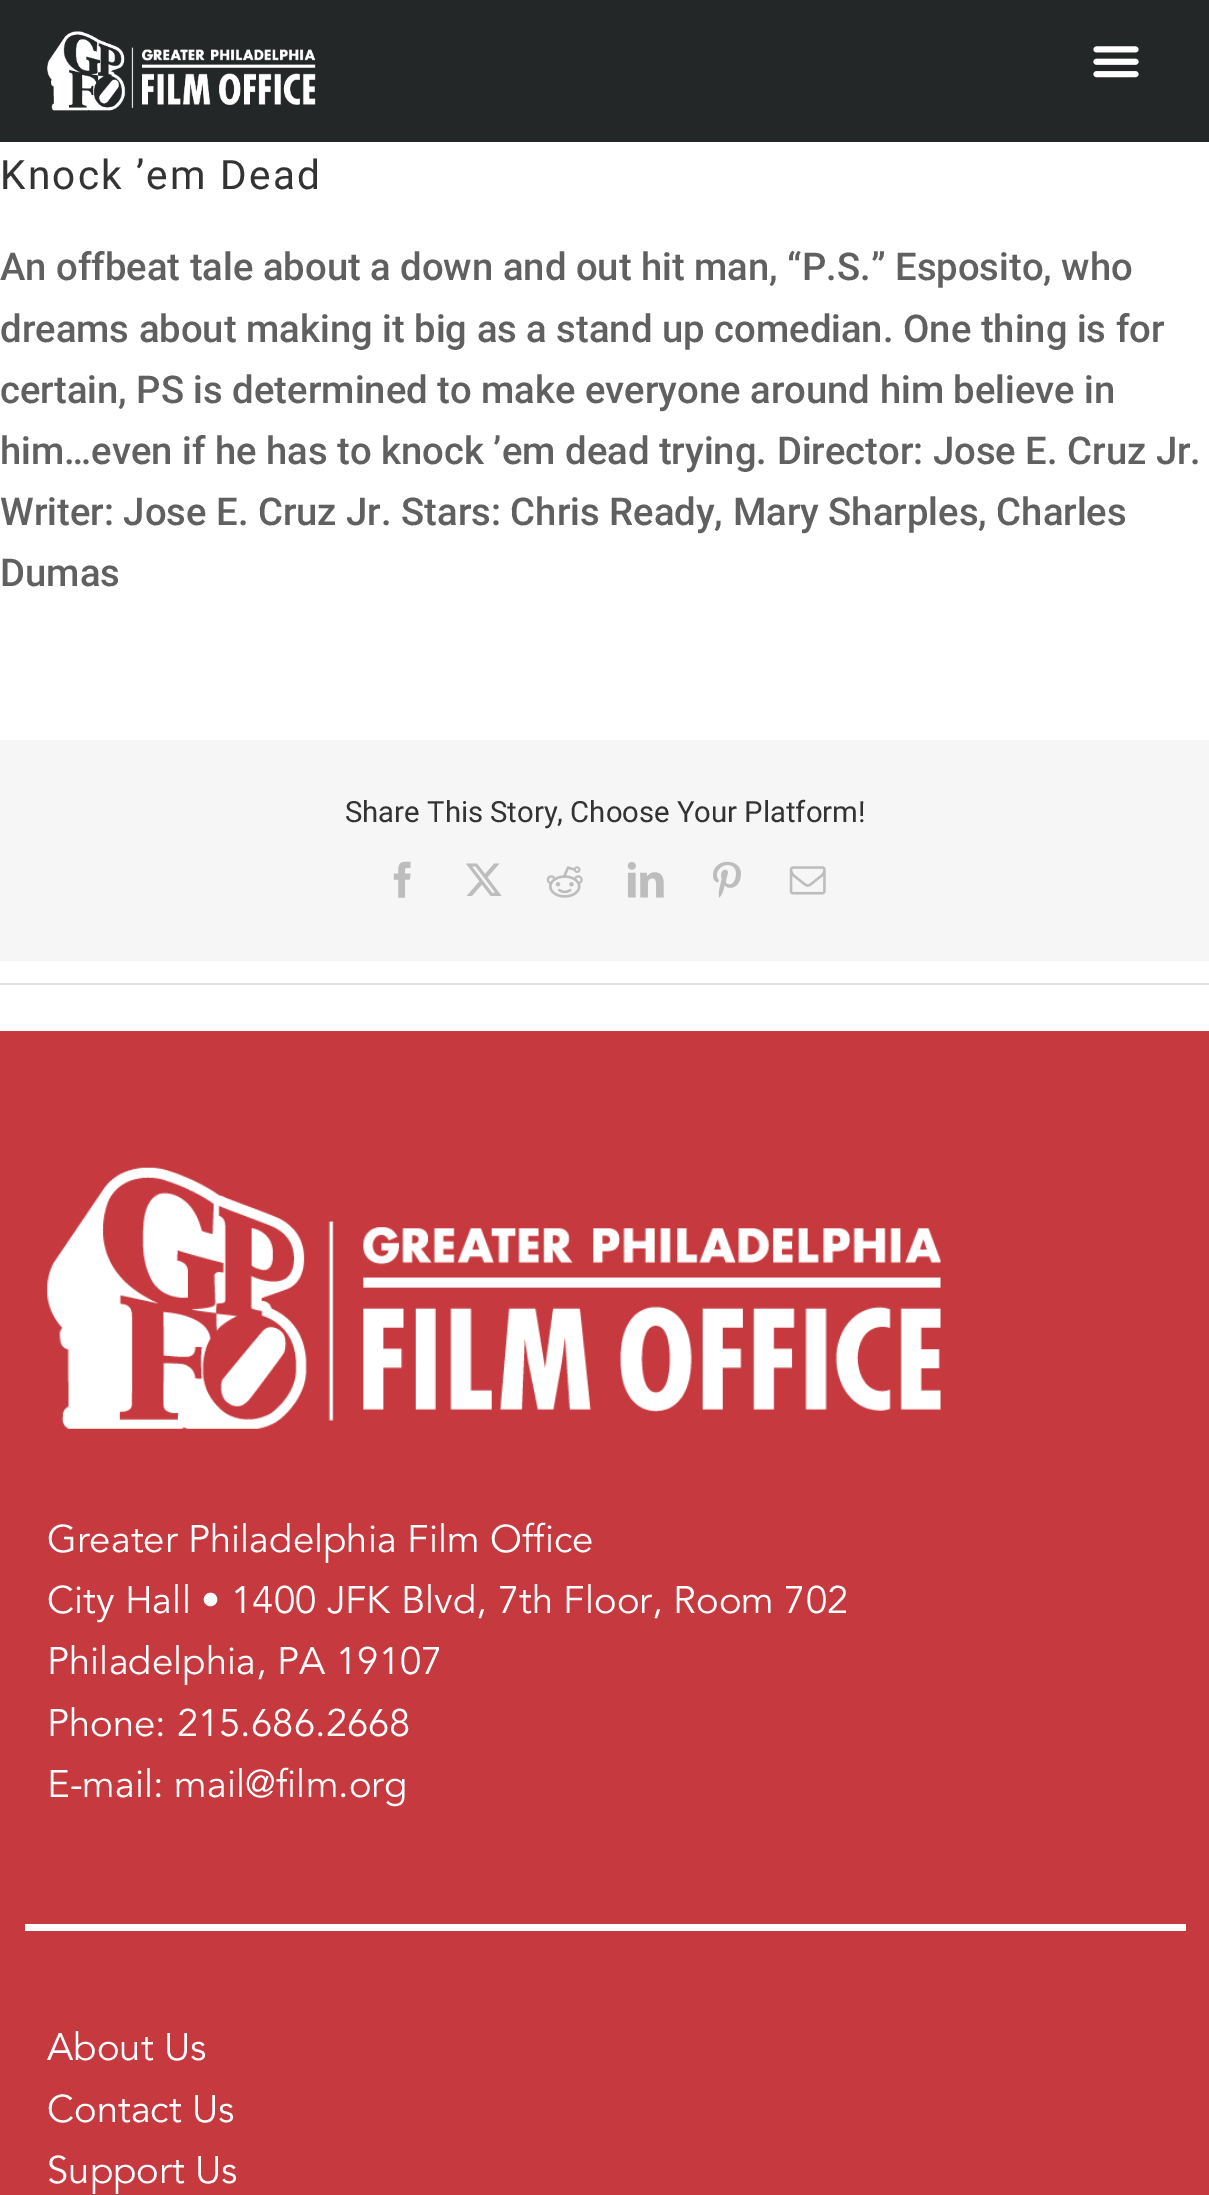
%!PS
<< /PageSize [1209 2195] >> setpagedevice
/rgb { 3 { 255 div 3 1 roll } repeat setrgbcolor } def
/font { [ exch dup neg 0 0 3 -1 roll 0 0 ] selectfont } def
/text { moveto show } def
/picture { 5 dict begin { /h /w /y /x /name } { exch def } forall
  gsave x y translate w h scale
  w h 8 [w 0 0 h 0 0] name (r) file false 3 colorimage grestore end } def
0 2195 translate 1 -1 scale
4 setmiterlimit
255 255 255 rgb
0 0 1209 2195 rectfill
36 39 40 rgb
0 0 1209 142 rectfill
(img_01.rgb) 47 31 269 80 picture
(img_02.rgb) 1093 46 46 32 picture
224 222 222 rgb
0 983 1209 2 rectfill
246 246 246 rgb
0 740 1209 221 rectfill
(img_03.rgb) 393 861 18 37 picture
(img_04.rgb) 466 863 36 33 picture
(img_05.rgb) 546 866 37 32 picture
(img_06.rgb) 627 862 37 36 picture
(img_07.rgb) 713 861 28 37 picture
(img_08.rgb) 789 866 37 29 picture
198 57 62 rgb
0 1031 1209 1164 rectfill
(img_09.rgb) 47 1167 894 262 picture
255 255 255 rgb
25 1924 1161 7 rectfill
/Roboto-Regular 40.5 font
51 51 51 rgb
0 189 moveto 2.25 0 (Knock ’em Dead) ashow
/Roboto-Medium 38.25 font
96 96 96 rgb
(An offbeat tale about a down and out hit man, “P.S.” Esposito, who) 0 280 text
(dreams about making it big as a stand up comedian. One thing is for) 0 342 text
(certain, PS is determined to make everyone around him believe in) 0 403 text
(him…even if he has to knock ’em dead trying. Director: Jose E. Cruz Jr.) 0 464 text
(Writer: Jose E. Cruz Jr. Stars: Chris Ready, Mary Sharples, Charles) 0 525 text
(Dumas) 0 586 text
/Roboto-Regular 29.25 font
51 51 51 rgb
(Share This Story, Choose Your Platform!) 345 822 text
/Avenir-Regular 38.25 font
255 255 255 rgb
(Greater Philadelphia Film Office) 47 1552 text
(City Hall • 1400 JFK Blvd, 7th Floor, Room 702) 47 1613 text
(Philadelphia, PA 19107) 47 1674 text
(Phone: 215.686.2668) 47 1736 text
(E-mail: mail@film.org) 47 1797 text
(About Us) 47 2060 text
(Contact Us) 47 2122 text
(Support Us) 47 2183 text
showpage
